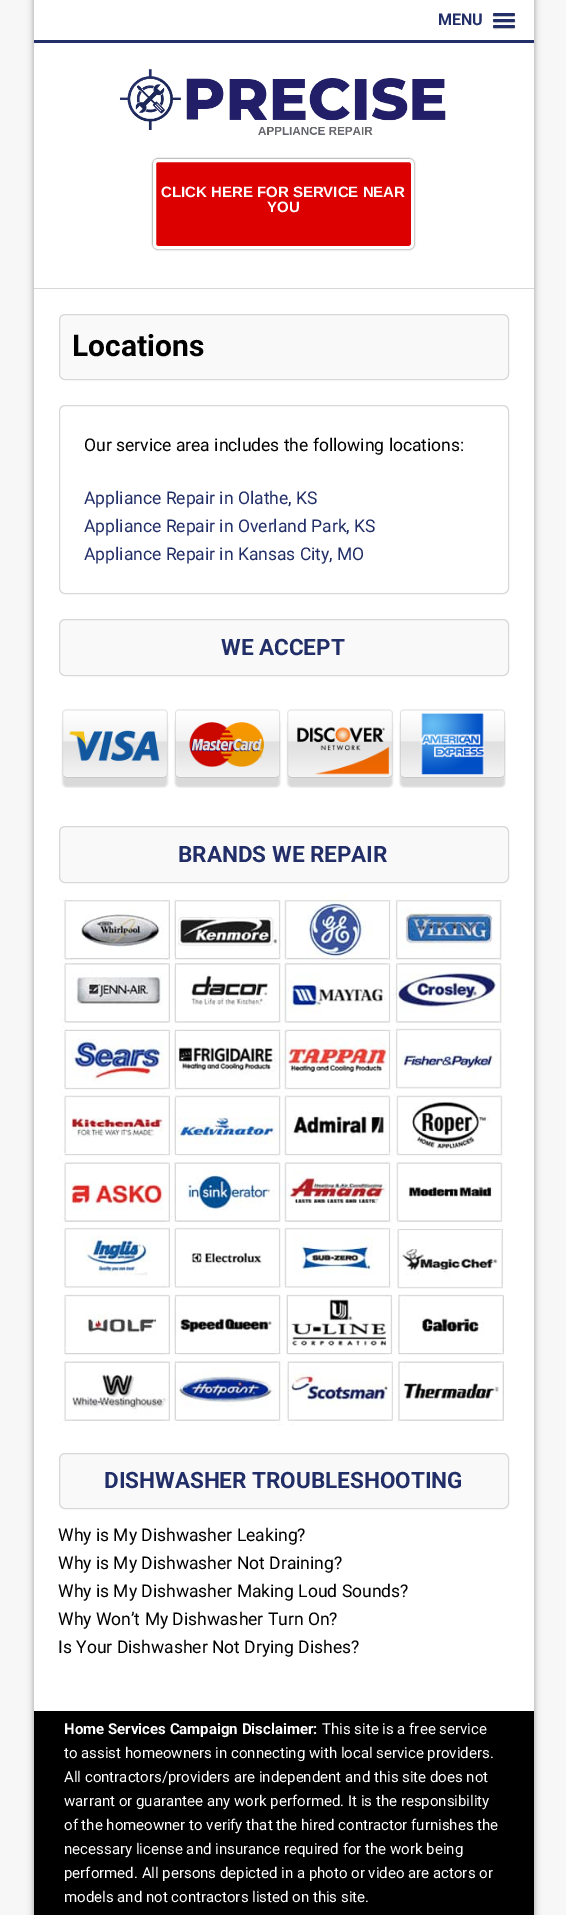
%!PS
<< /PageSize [566 1915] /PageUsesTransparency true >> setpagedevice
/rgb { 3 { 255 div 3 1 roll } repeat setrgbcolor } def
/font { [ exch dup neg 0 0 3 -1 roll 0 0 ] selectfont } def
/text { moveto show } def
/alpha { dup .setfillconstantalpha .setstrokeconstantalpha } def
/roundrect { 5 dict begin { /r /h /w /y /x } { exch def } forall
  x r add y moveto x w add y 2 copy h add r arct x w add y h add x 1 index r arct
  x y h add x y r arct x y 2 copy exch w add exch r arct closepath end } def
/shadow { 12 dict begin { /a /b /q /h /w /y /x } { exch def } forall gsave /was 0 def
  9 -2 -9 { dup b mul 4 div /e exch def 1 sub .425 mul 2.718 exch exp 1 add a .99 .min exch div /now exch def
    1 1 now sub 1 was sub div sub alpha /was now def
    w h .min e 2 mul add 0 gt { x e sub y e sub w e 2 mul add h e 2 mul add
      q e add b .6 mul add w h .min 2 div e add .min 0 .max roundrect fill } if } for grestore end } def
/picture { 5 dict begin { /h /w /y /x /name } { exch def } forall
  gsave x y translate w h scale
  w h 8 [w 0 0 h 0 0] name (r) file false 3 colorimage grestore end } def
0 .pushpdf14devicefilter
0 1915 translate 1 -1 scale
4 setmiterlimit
247 247 247 rgb
0 0 566 1915 rectfill
168 168 168 rgb
33 -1 502 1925 0 3 1 shadow
255 255 255 rgb
34 0 500 1711 rectfill
33 46 103 rgb
34 40 500 3 rectfill
191 191 191 rgb
493 15 moveto -1 2.5 4 2 4.5 2 rcurveto 13 0 rlineto 0 0 6.5 0.5 4 -2.5 rcurveto -0.5 0.5 rlineto closepath fill
33 46 103 rgb
493 13 22 3 1.5 roundrect fill
191 191 191 rgb
493 21 moveto -0.5 2.5 4 2 4.5 2 rcurveto 13 0 rlineto 0.5 0 6 0.5 4.5 -2.5 rcurveto -1 0.5 rlineto closepath fill
33 46 103 rgb
493 19 22 3 1.5 roundrect fill
191 191 191 rgb
493 27.5 moveto -0.5 2 3.5 1.5 4.5 1.5 rcurveto 13 0 rlineto 0.5 0 5.5 0.5 4.5 -2 rcurveto -1 0.5 rlineto -2 0 -20.5 0 -21 0 rcurveto closepath fill
33 46 103 rgb
493 25 22 3 1.5 roundrect fill
216 216 216 rgb
34 288 500 1 rectfill
(img_01.rgb) 119 69 327 66 picture
51 51 51 rgb
153 159 261 90 5 1 1 shadow
221 0 0 rgb
154.5 160.5 258 87 3.5 roundrect gsave fill grestore
255 255 255 rgb
3 setlinewidth
stroke
249 249 249 rgb
59.5 314.5 449 65 5.5 roundrect gsave fill grestore
216 216 216 rgb
1 setlinewidth
stroke
59.5 405.5 449 188 5.5 roundrect stroke
249 249 249 rgb
59.5 619.5 449 56 5.5 roundrect gsave fill grestore
216 216 216 rgb
stroke
(img_02.rgb) 61 709 445 79 picture
249 249 249 rgb
59.5 826.5 449 56 5.5 roundrect gsave fill grestore
216 216 216 rgb
stroke
(img_03.rgb) 59 895 445 531 picture
249 249 249 rgb
59.5 1453.5 449 55 5.5 roundrect gsave fill grestore
216 216 216 rgb
stroke
0 0 0 rgb
34 1711 500 204 rectfill
/Roboto-Bold 16 font
33 46 103 rgb
(MENU) 438 25 text
/LiberationSans-Bold 15 font
255 255 255 rgb
(CLICK HERE FOR SERVICE NEAR) 161 197 text
(YOU) 267 212 text
/Roboto-Bold 30 font
0 0 0 rgb
(Locations) 72 356 text
/Roboto-Regular 17.5 font
(Our service area includes the following locations:) 84 451 text
33 46 103 rgb
(Appliance Repair in Olathe, KS) 84 504 text
(Appliance Repair in Overland Park, KS) 84 532 text
(Appliance Repair in Kansas City, MO) 84 560 text
/Roboto-Bold 22.5 font
(WE ACCEPT) 221 655 text
(BRANDS WE REPAIR) 178 862 text
(DISHWASHER TROUBLESHOOTING) 104 1488 text
/Roboto-Regular 17.5 font
0 0 0 rgb
(Why is My Dishwasher Leaking?) 58 1541 text
(Why is My Dishwasher Not Draining?) 58 1569 text
(Why is My Dishwasher Making Loud Sounds?) 58 1597 text
(Why Won’t My Dishwasher Turn On?) 58 1625 text
(Is Your Dishwasher Not Drying Dishes?) 58 1653 text
/Roboto-Bold 15 font
255 255 255 rgb
(Home Services Campaign Disclaimer:) 64 1734 text
/Roboto-Regular 15 font
(This site is a free service) 322 1734 text
(to assist homeowners in connecting with local service providers.) 64 1758 text
(All contractors/providers are independent and this site does not) 64 1782 text
(warrant or guarantee any work performed. It is the responsibility) 64 1806 text
(of the homeowner to verify that the hired contractor furnishes the) 64 1830 text
(necessary license and insurance required for the work being) 64 1854 text
(performed. All persons depicted in a photo or video are actors or) 64 1878 text
(models and not contractors listed on this site.) 64 1902 text
.poppdf14devicefilter showpage
